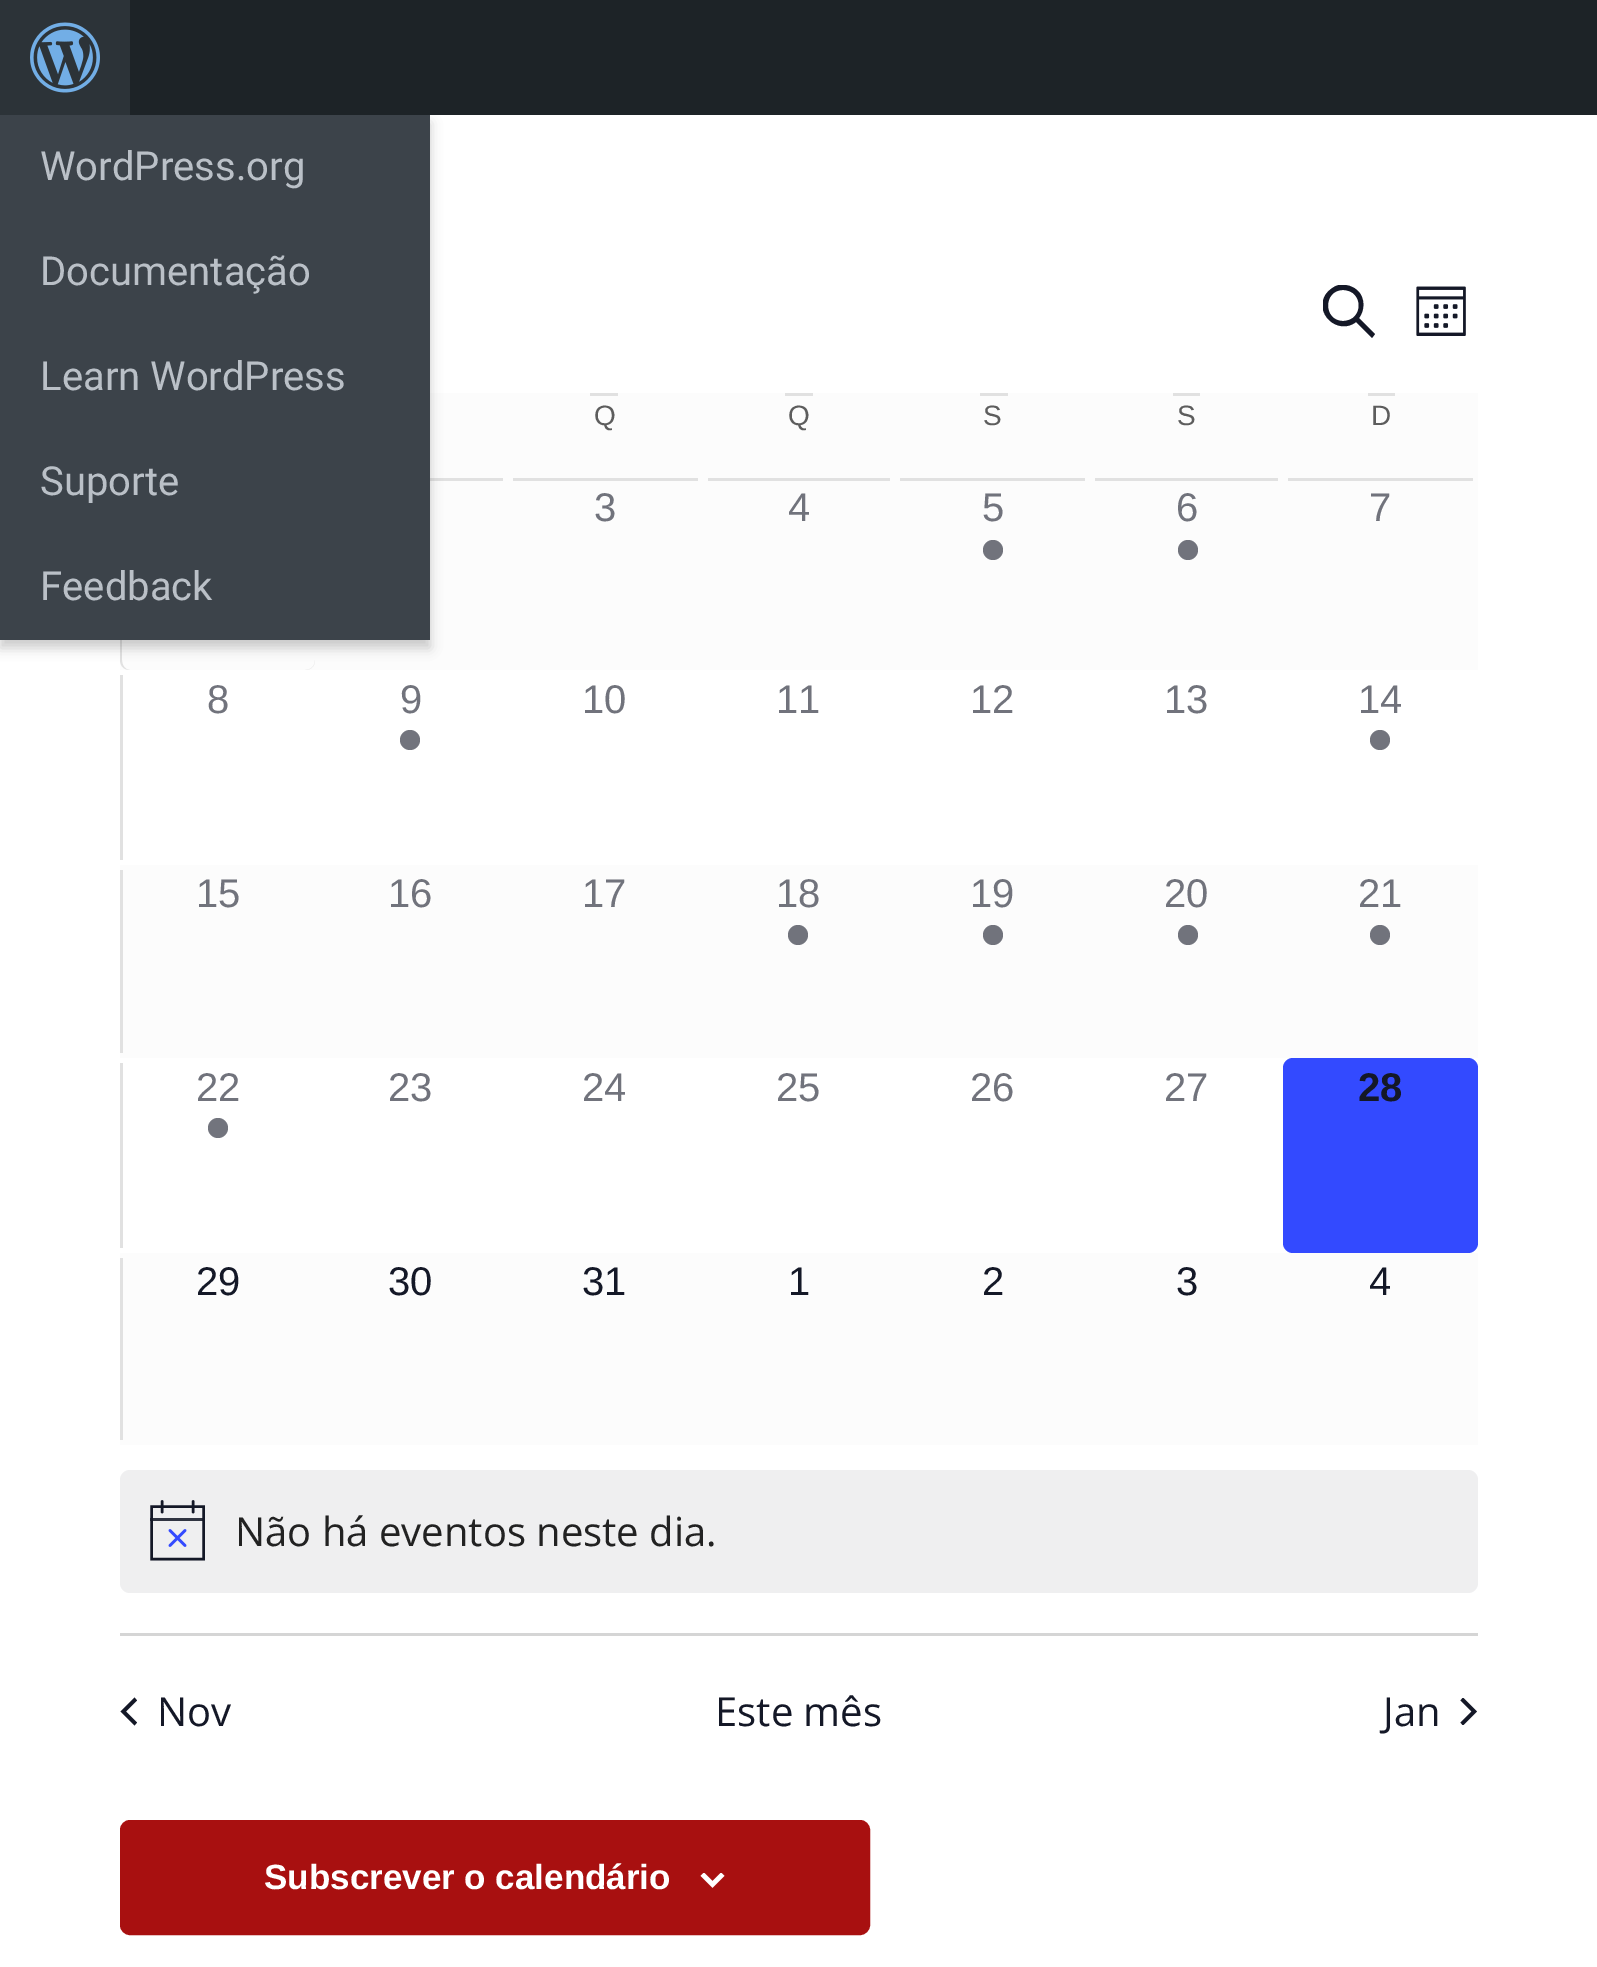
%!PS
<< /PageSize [1597 1967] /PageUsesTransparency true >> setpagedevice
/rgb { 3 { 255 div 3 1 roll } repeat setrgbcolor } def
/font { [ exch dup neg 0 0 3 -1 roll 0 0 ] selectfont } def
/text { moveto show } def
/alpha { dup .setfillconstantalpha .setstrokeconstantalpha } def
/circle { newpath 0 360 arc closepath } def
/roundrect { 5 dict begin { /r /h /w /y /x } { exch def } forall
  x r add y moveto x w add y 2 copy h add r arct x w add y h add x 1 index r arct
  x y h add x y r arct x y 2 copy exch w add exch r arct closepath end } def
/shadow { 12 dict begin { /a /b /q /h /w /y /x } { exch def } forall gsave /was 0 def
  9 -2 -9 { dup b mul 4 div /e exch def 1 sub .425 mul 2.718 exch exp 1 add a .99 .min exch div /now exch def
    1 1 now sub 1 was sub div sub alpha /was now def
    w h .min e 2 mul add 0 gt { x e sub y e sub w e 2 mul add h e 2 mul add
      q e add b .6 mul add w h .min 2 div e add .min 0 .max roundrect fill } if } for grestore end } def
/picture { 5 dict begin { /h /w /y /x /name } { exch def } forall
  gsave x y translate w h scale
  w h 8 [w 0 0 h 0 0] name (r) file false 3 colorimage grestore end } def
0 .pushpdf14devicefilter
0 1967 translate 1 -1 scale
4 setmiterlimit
255 255 255 rgb
0 0 1597 1967 rectfill
29 35 39 rgb
130 0 1467 115 rectfill
44 51 56 rgb
0 0 130 115 rectfill
(img_01.rgb) 30 22 70 71 picture
252 252 252 rgb
120 393 1358 1052 rectfill
225 225 225 rgb
130 478 moveto 175 0 rlineto 6 0 10 4 10 10 rcurveto 0 172 rlineto 0 6 -4 10 -10 10 rcurveto -175 0 rlineto -6 0 -10 -4 -10 -10 rcurveto 0 -172 rlineto 0 -6 4 -10 10 -10 rcurveto closepath 130 480 moveto 175 0 rlineto 6 0 10 3 10 8 rcurveto 0 172 rlineto 0 6 -4 10 -10 10 rcurveto -175 0 rlineto -4 0 -8 -4 -8 -10 rcurveto 0 -172 rlineto 0 -5 4 -8 8 -8 rcurveto closepath eofill
430 478 73 3 rectfill
0 0 0 rgb
0 123 430 525 0 6 0.2 shadow
60 67 74 rgb
0 115 430 525 rectfill
gsave
1323 285 52 53 rectclip
20 24 39 rgb
1359 318 moveto 16 16 rlineto -3 4 rlineto -16 -16 rlineto -18 14 -43 -9 -30 -28 rcurveto 3 -4 8 -8 13 -9 rcurveto 7 -1 14 1 19 6 rcurveto 7 7 7 19 1 27 rcurveto closepath 1343 290 moveto -20 0 -20 31 0 31 rcurveto 21 0 21 -31 0 -31 rcurveto closepath eofill
grestore
(img_02.rgb) 1416 286 50 50 picture
225 225 225 rgb
590 393 28 3 rectfill
785 393 28 3 rectfill
980 393 28 3 rectfill
1173 393 27 3 rectfill
1368 393 27 3 rectfill
513 478 185 3 rectfill
708 478 182 3 rectfill
900 478 185 3 rectfill
113 115 124 rgb
993 550 10 circle fill
225 225 225 rgb
1095 478 183 3 rectfill
113 115 124 rgb
1188 550 10 circle fill
225 225 225 rgb
1288 478 185 3 rectfill
255 255 255 rgb
120 670 1358 195 rectfill
225 225 225 rgb
120 675 3 185 rectfill
114 116 125 rgb
410 740 10 circle fill
1380 740 10 circle fill
225 225 225 rgb
120 870 3 183 rectfill
113 115 124 rgb
798 935 10 circle fill
993 935 10 circle fill
1188 935 10 circle fill
1380 935 10 circle fill
255 255 255 rgb
120 1058 1358 195 rectfill
225 225 225 rgb
120 1063 3 185 rectfill
114 116 125 rgb
218 1128 10 circle fill
51 74 255 rgb
1283 1058 195 195 10 roundrect fill
225 225 225 rgb
120 1258 3 182 rectfill
239 239 240 rgb
120 1470 1358 123 10 roundrect fill
20 24 39 rgb
2.6 setlinewidth
151.5 1506.5 moveto 52 0 rlineto 0 52.5 rlineto -52 0 rlineto closepath stroke
51 74 255 rgb
1 setlinecap
170 1530.5 moveto 15 15 rlineto 185 1530.5 moveto -15 15 rlineto stroke
20 24 39 rgb
162 1501.5 moveto 0 10.5 rlineto 193 1501.5 moveto 0 10.5 rlineto stroke
0.87 alpha
150 1518 55 3 rectfill
1 alpha
213 213 213 rgb
120 1633 1358 3 rectfill
20 24 39 rgb
137 1722.5 moveto -2.5 3 rlineto -14 -14 rlineto 14 -14 rlineto 2.5 3 rlineto -11 11 rlineto closepath fill
gsave
1460 1698 18 27 rectclip
1460.5 1700.5 moveto 2.5 -3 rlineto 14 14 rlineto -14 14 rlineto -2.5 -3 rlineto 11 -11 rlineto closepath fill
grestore
168 16 16 rgb
121.5 1821.5 747 112 8.5 roundrect gsave fill grestore
3 setlinewidth
0 setlinecap
stroke
(img_03.rgb) 700 1873 25 15 picture
/Roboto-Regular 40 font
186 192 199 rgb
(WordPress.org) 40 180 text
(Documentação) 40 285 text
(Learn WordPress) 40 390 text
(Suporte) 40 495 text
(Feedback) 40 600 text
/LiberationSans-Regular 28 font
93 93 93 rgb
(Q) 594 425 text
(Q) 788 425 text
(S) 983 425 text
(S) 1177 425 text
(D) 1371 425 text
/LiberationSans-Regular 40 font
113 115 124 rgb
(3) 594 521 text
(4) 788 521 text
(5) 982 521 text
(6) 1176 521 text
(7) 1369 521 text
(8) 207 713 text
(9) 400 713 text
(10) 582 713 text
(11) 776 713 text
(12) 970 713 text
(13) 1164 713 text
(14) 1358 713 text
(15) 196 907 text
(16) 388 907 text
(17) 582 907 text
(18) 776 907 text
(19) 970 907 text
(20) 1164 907 text
(21) 1358 907 text
(22) 196 1101 text
(23) 388 1101 text
(24) 582 1101 text
(25) 776 1101 text
(26) 970 1101 text
(27) 1164 1101 text
/LiberationSans-Bold 40 font
20 24 39 rgb
(28) 1358 1101 text
/LiberationSans-Regular 40 font
(29) 196 1295 text
(30) 388 1295 text
(31) 582 1295 text
(1) 788 1295 text
(2) 982 1295 text
(3) 1176 1295 text
(4) 1369 1295 text
/OpenSans-Regular 40 font
34 34 34 rgb
(Não há eventos neste dia.) 235 1546 text
20 24 39 rgb
(Nov) 157 1726 text
(Este mês) 715 1726 text
(Jan) 1383 1726 text
/LiberationSans-Bold 35 font
255 255 255 rgb
(Subscrever o calendário) 264 1889 text
.poppdf14devicefilter showpage
